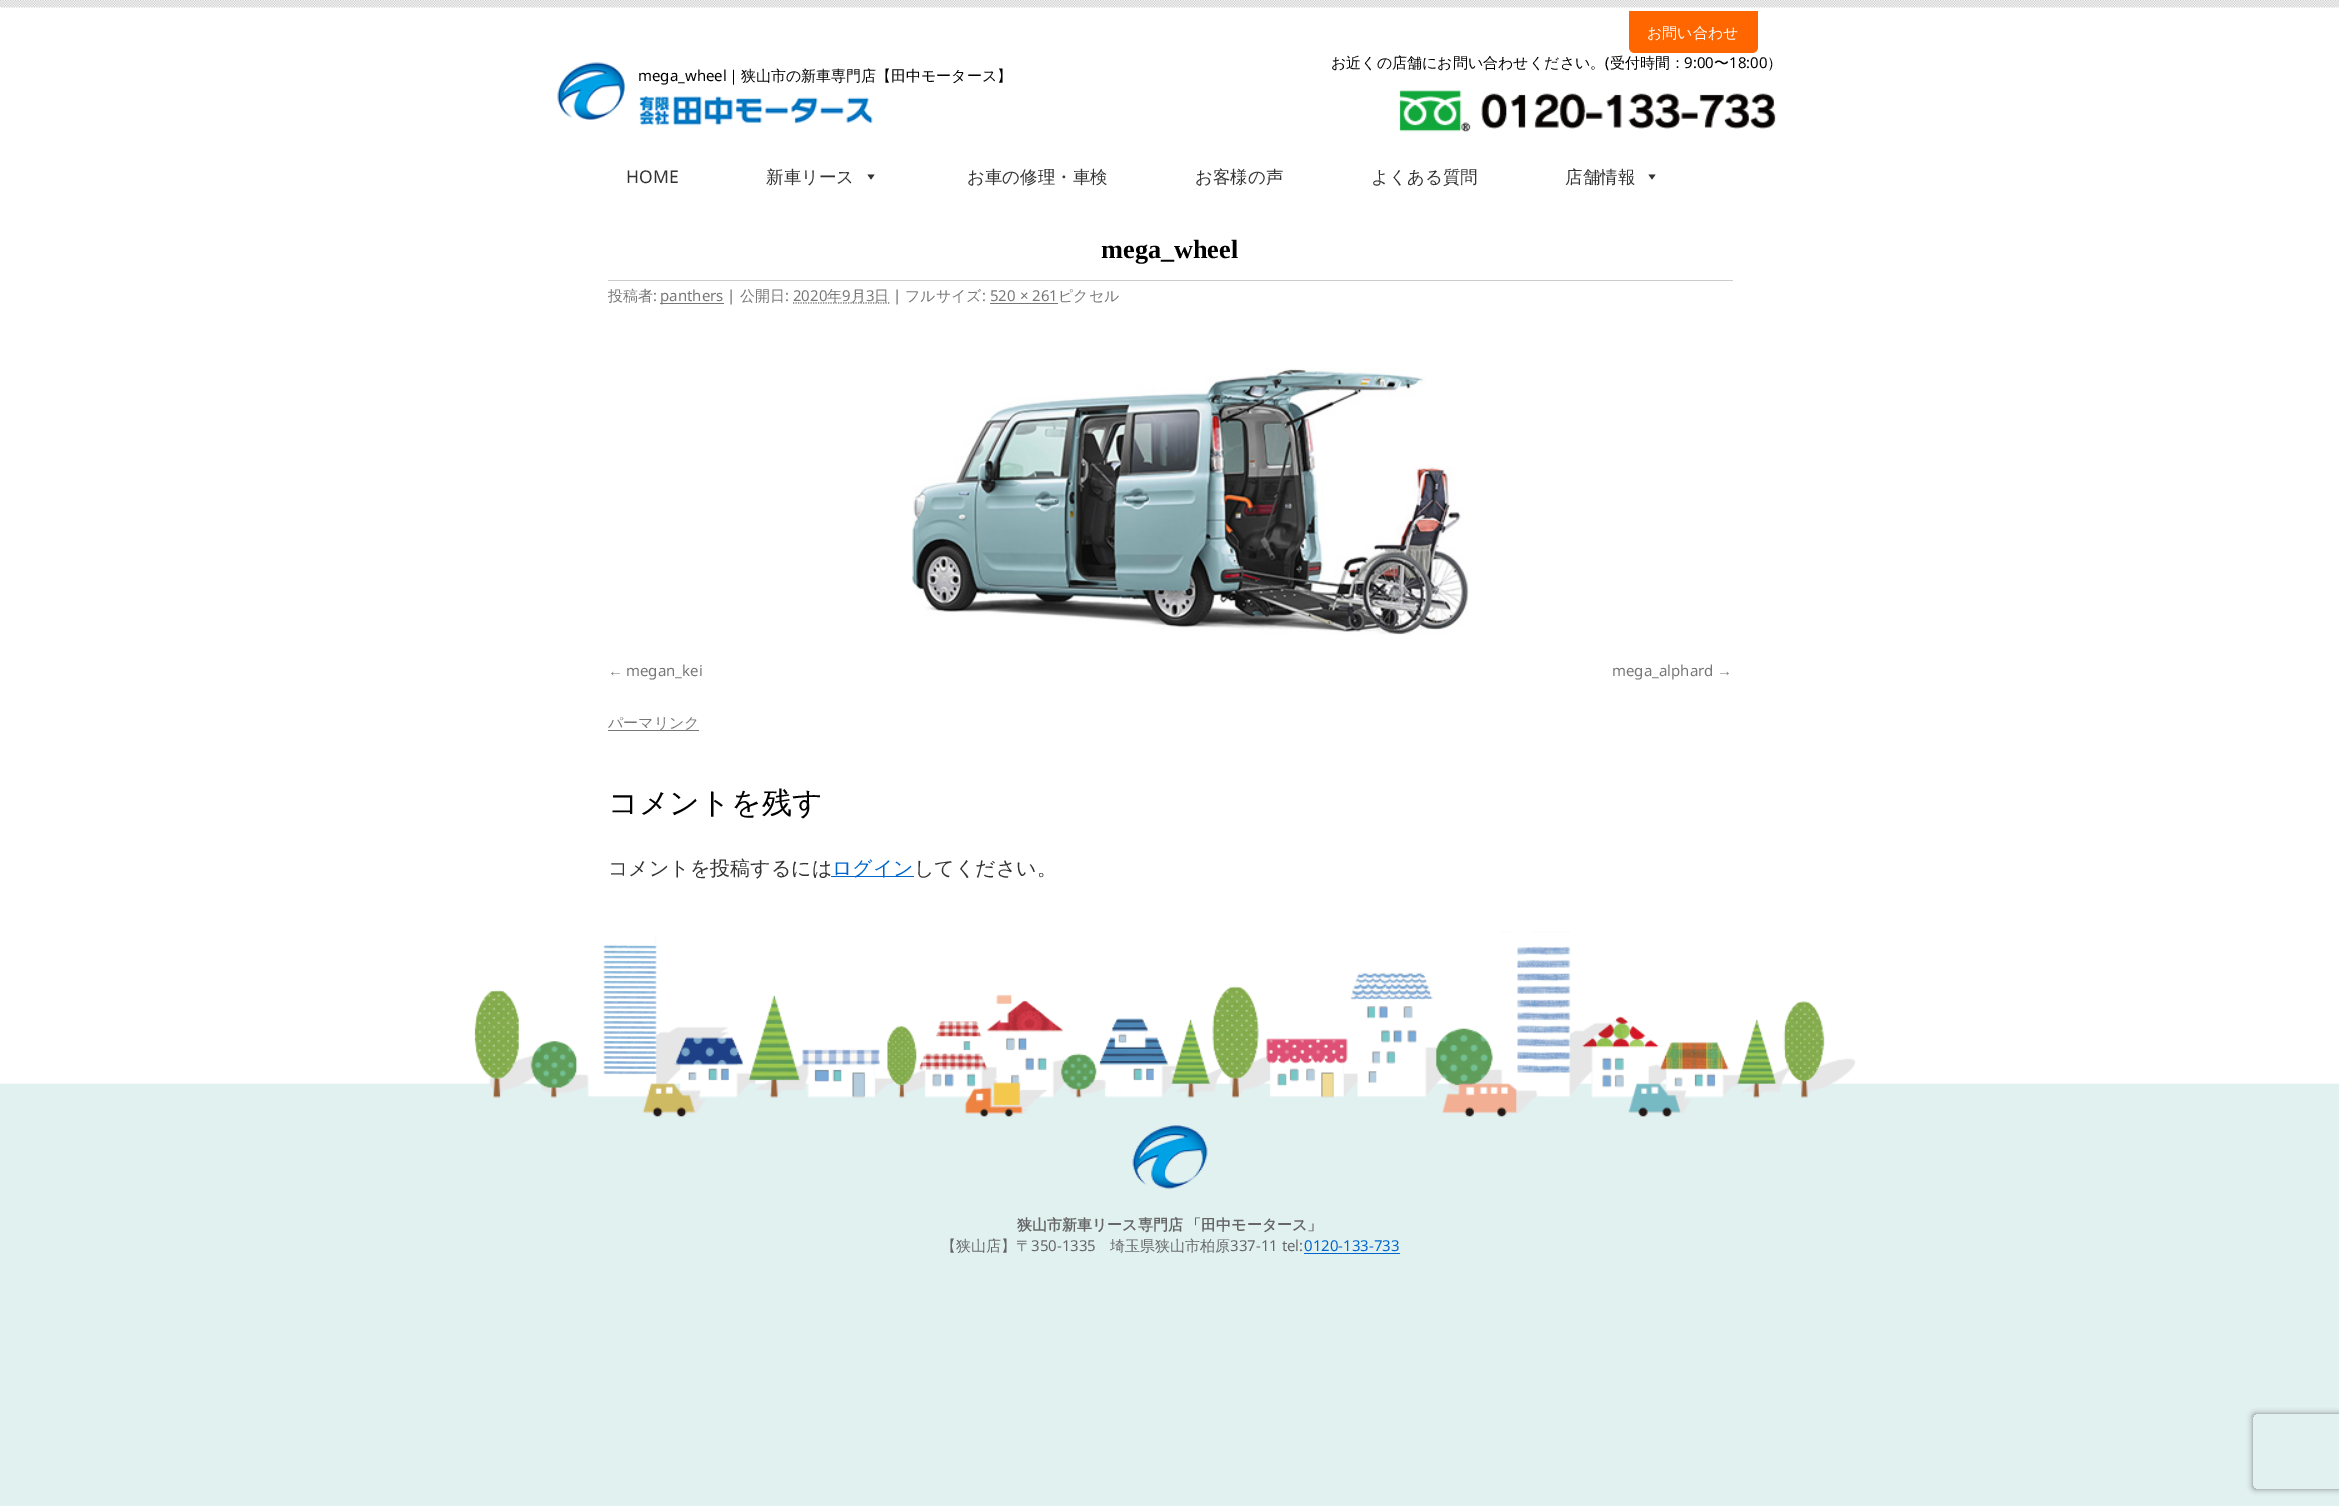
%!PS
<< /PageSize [2339 1506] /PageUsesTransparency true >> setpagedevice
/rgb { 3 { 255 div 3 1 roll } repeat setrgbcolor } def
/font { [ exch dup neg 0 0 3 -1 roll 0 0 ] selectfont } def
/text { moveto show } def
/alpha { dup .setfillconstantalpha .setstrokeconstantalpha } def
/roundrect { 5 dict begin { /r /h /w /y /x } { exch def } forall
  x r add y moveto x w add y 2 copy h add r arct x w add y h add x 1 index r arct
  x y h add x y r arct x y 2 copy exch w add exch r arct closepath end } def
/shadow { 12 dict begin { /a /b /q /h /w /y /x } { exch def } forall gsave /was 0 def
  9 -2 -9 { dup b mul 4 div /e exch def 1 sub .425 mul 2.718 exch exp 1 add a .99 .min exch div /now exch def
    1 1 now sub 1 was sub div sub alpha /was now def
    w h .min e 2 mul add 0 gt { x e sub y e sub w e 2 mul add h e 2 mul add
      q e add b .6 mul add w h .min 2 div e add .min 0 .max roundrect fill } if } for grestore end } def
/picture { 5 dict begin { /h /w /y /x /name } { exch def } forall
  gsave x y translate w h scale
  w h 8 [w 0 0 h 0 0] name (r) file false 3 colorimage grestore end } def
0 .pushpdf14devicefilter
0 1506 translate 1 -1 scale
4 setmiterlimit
255 255 255 rgb
0 0 2339 1506 rectfill
(img_01.rgb) 0 0 2339 8 picture
255 102 0 rgb
1629 11 moveto 129 0 rlineto 0 36 rlineto 0 3.5 -2.5 6 -6 6 rcurveto -117 0 rlineto -3.5 0 -6 -2.5 -6 -6 rcurveto closepath fill
(img_02.rgb) 1399 90 377 42 picture
(img_03.rgb) 557 62 68 58 picture
(img_04.rgb) 639 96 234 30 picture
51 51 51 rgb
874.5 174.5 moveto -3.5 5 rlineto -3.5 -5 rlineto closepath fill
1655.5 174.5 moveto -3.5 5 rlineto -3.5 -5 rlineto closepath fill
204 204 204 rgb
608 280 1125 1 rectfill
119 119 119 rgb
660 303 64 1 rectfill
1.2 setlinewidth
[1.25 1.25] 0 setdash
793 303 moveto 96.5 0 rlineto stroke
990 303 68 1 rectfill
(img_05.rgb) 912 368 557 267 picture
608 730 91 1 rectfill
0 102 204 rgb
831 876 83 1 rectfill
(img_06.rgb) 0 931 2339 575 picture
(img_07.rgb) 1132 1125 76 64 picture
1304 1253 96 1 rectfill
gsave
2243 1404 moveto 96 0 rlineto 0 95 rlineto -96 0 rlineto closepath 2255.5 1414 moveto 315 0 rlineto 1.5 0 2.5 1 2.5 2.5 rcurveto 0 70 rlineto 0 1.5 -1 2.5 -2.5 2.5 rcurveto -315 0 rlineto -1.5 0 -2.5 -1 -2.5 -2.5 rcurveto 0 -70 rlineto 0 -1.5 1 -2.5 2.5 -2.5 rcurveto closepath eoclip newpath
128 128 128 rgb
2253 1414 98 75 2.5 3 1 shadow
grestore
/WenQuanYiZenHei-Medium 15 font
255 255 255 rgb
(お問い合わせ) 1647 38 text
0 0 0 rgb
(お近くの店舗にお問い合わせください。 受付時間：) 1331 68 text
/NotoSans-Regular 15 font
(\() 1605 68 text
(9:00) 1684 68 text
/WenQuanYiZenHei-Medium 15 font
(〜) 1714 68 text
/NotoSans-Regular 15 font
(18:00) 1729 68 text
/WenQuanYiZenHei-Medium 15 font
(）) 1767 68 text
/NotoSans-Regular 15 font
(mega_wheel) 638 81 text
/WenQuanYiZenHei-Medium 15 font
(｜狭山市の新車専門店【田中モータース】) 726 81 text
/NotoSans-Regular 17.5 font
51 51 51 rgb
(HOME) 626 183 text
/WenQuanYiZenHei-Medium 17.5 font
(新車リース) 766 183 text
(お車の修理・車検) 967 183 text
(お客様の声) 1195 183 text
(よくある質問) 1371 183 text
(店舗情報) 1565 183 text
/LiberationSerif-Bold 26.25 font
0 0 0 rgb
(mega_wheel) 1101 258 text
/WenQuanYiZenHei-Medium 15 font
119 119 119 rgb
(投稿者) 608 301 text
/NotoSans-Regular 15 font
(:) 653 301 text
(panthers |) 660 301 text
/WenQuanYiZenHei-Medium 15 font
(公開日) 740 301 text
/NotoSans-Regular 15 font
(: 2020) 785 301 text
/WenQuanYiZenHei-Medium 15 font
(年) 827 301 text
/NotoSans-Regular 15 font
(9) 842 301 text
/WenQuanYiZenHei-Medium 15 font
(月) 851 301 text
/NotoSans-Regular 15 font
(3) 866 301 text
/WenQuanYiZenHei-Medium 15 font
(日) 874 301 text
/NotoSans-Regular 15 font
(|) 893 301 text
/WenQuanYiZenHei-Medium 15 font
(フルサイズ) 905 301 text
/NotoSans-Regular 15 font
(: 520 × 261) 982 301 text
/WenQuanYiZenHei-Medium 15 font
(ピクセル) 1058 301 text
/LiberationSans-Regular 15 font
(←) 608 676 text
/NotoSans-Regular 15 font
(megan_kei) 626 676 text
(mega_alphard) 1612 676 text
/LiberationSans-Regular 15 font
(→) 1717 676 text
/WenQuanYiZenHei-Medium 15 font
(パーマリンク) 608 728 text
/WenQuanYiZenHei-Medium 30 font
0 0 0 rgb
(コメントを残す) 608 813 text
/WenQuanYiZenHei-Medium 20 font
51 51 51 rgb
(コメントを投稿するには) 608 875 text
0 102 204 rgb
(ログイン) 832 875 text
51 51 51 rgb
(してください。) 914 875 text
/WenQuanYiZenHei-Bold 15 font
102 102 102 rgb
1017 1230 moveto -1 0 32 (狭山市新車リース専門店 「田中モータース」) widthshow
/WenQuanYiZenHei-Medium 15 font
(【狭山店】〒) 941 1251 text
/NotoSans-Regular 15 font
(350-1335) 1031 1251 text
/WenQuanYiZenHei-Medium 15 font
(埼玉県狭山市柏原) 1110 1251 text
/NotoSans-Regular 15 font
(337-11 tel:) 1230 1251 text
0 102 204 rgb
(0120-133-733) 1304 1251 text
.poppdf14devicefilter showpage
